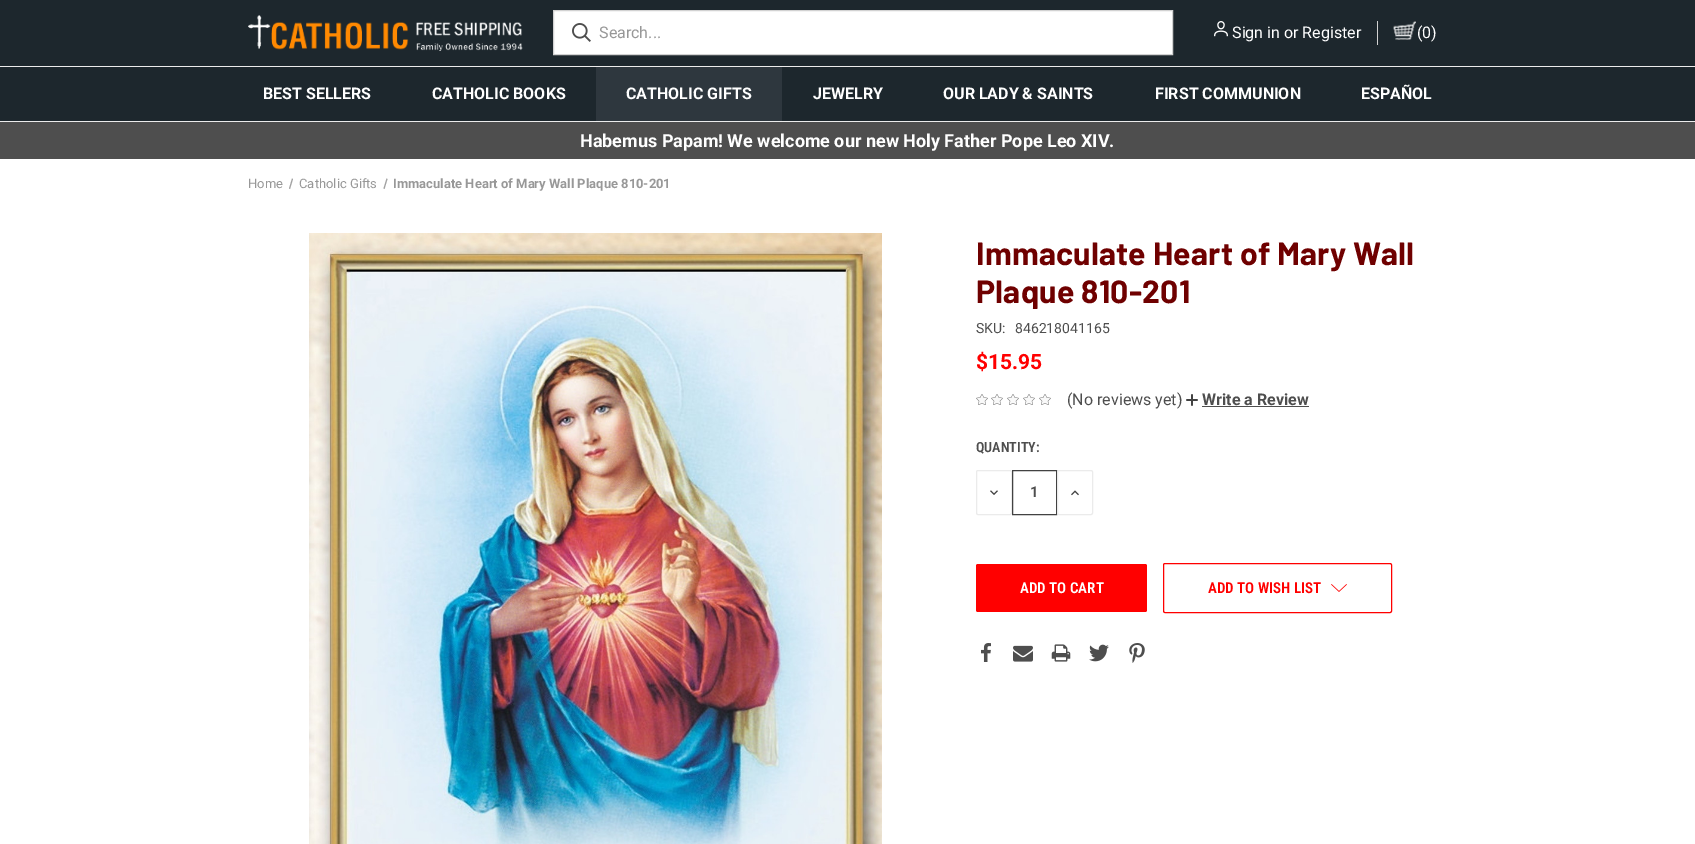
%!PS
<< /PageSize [1695 844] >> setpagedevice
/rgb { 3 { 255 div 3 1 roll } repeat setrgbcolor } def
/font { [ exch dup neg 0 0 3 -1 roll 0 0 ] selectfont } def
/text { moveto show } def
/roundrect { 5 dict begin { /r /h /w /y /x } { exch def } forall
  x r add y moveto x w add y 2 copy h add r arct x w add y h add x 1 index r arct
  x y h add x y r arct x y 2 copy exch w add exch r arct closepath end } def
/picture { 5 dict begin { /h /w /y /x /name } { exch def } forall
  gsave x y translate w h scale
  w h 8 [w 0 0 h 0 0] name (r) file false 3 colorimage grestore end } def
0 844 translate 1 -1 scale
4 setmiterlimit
255 255 255 rgb
0 0 1695 844 rectfill
29 39 45 rgb
0 0 1695 66 rectfill
(img_01.rgb) 248 15 275 36 picture
255 255 255 rgb
553.5 10.5 moveto 619 0 rlineto 0 44 rlineto -619 0 rlineto closepath gsave fill grestore
210 210 210 rgb
stroke
(img_02.rgb) 572 23 19 19 picture
(img_03.rgb) 1214 21 14 16 picture
1377 21 1 24 rectfill
(img_04.rgb) 1393 21 23 19 picture
29 39 45 rgb
0 67 1695 54 rectfill
235 235 235 rgb
0 66 1695 1 rectfill
0 121 1695 1 rectfill
46 55 62 rgb
596 67 186 54 rectfill
78 78 78 rgb
0 122 1695 37 rectfill
163 163 163 rgb
292 178.5 moveto 1 0.5 rlineto -3 10 rlineto -1 -0.5 rlineto closepath fill
386.5 178.5 moveto 1 0.5 rlineto -3 10 rlineto -1 -0.5 rlineto closepath fill
(img_05.rgb) 309 233 573 611 picture
(img_06.rgb) 976 394 12 11 picture
(img_06.rgb) 991 394 12 11 picture
(img_06.rgb) 1007 394 12 11 picture
(img_06.rgb) 1023 394 12 11 picture
(img_06.rgb) 1039 394 12 11 picture
(img_07.rgb) 1186 394 12 12 picture
78 78 78 rgb
1202 406 107 1 rectfill
235 235 235 rgb
976.5 470.5 35 44 1.5 roundrect stroke
(img_08.rgb) 990 490 8 5 picture
66 66 66 rgb
1012.5 470.5 44 44 rectstroke
235 235 235 rgb
1057.5 470.5 35 44 1.5 roundrect stroke
(img_09.rgb) 1071 490 8 6 picture
255 0 0 rgb
976 564 171 48 2 roundrect fill
1163.5 563.5 228 49 1.5 roundrect stroke
(img_10.rgb) 1331 584 16 8 picture
(img_11.rgb) 981 643 10 19 picture
(img_12.rgb) 1013 645 20 17 picture
(img_13.rgb) 1051 644 20 18 picture
(img_14.rgb) 1089 644 20 18 picture
(img_15.rgb) 1129 643 16 20 picture
/Roboto-Regular 16 font
152 152 152 rgb
(Search...) 599 38 text
255 255 255 rgb
(Sign in or Register) 1232 38 text
(\(0\)) 1417 38 text
/Roboto-Bold 16 font
(BEST SELLERS) 263 99 text
(CATHOLIC BOOKS) 432 99 text
(CATHOLIC GIFTS) 626 99 text
(JEWELRY) 813 99 text
(OUR LADY & SAINTS) 943 99 text
(FIRST COMMUNION) 1155 99 text
(ESPAÑOL) 1361 99 text
/Roboto-Bold 18 font
(Habemus Papam! We welcome our new Holy Father Pope Leo XIV.) 580 147 text
/Roboto-Regular 13 font
152 152 152 rgb
(Home) 248 188 text
(Catholic Gifts) 299 188 text
/Roboto-Bold 13 font
(Immaculate Heart of Mary Wall Plaque 810-201) 393 188 text
/Barlow-Bold 32 font
111 0 0 rgb
976 265 moveto 0.25 0 (Immaculate Heart of Mary Wall) ashow
976 303 moveto 0.25 0 (Plaque 810-201) ashow
/Roboto-Regular 14 font
78 78 78 rgb
(SKU:) 976 333 text
(846218041165) 1015 333 text
/Roboto-Bold 21 font
255 0 0 rgb
($15.95) 976 369 text
/Roboto-Regular 16 font
78 78 78 rgb
(\(No reviews yet\)) 1067 405 text
/Roboto-Bold 16 font
(Write a Review) 1202 405 text
/RobotoCondensed-SemiBold 14 font
(QUANTITY:) 976 452 text
/Roboto-Bold 15 font
(1) 1030 497 text
/RobotoCondensed-SemiBold 15 font
255 255 255 rgb
(ADD TO CART) 1020 593 text
255 0 0 rgb
(ADD TO WISH LIST) 1208 593 text
showpage
